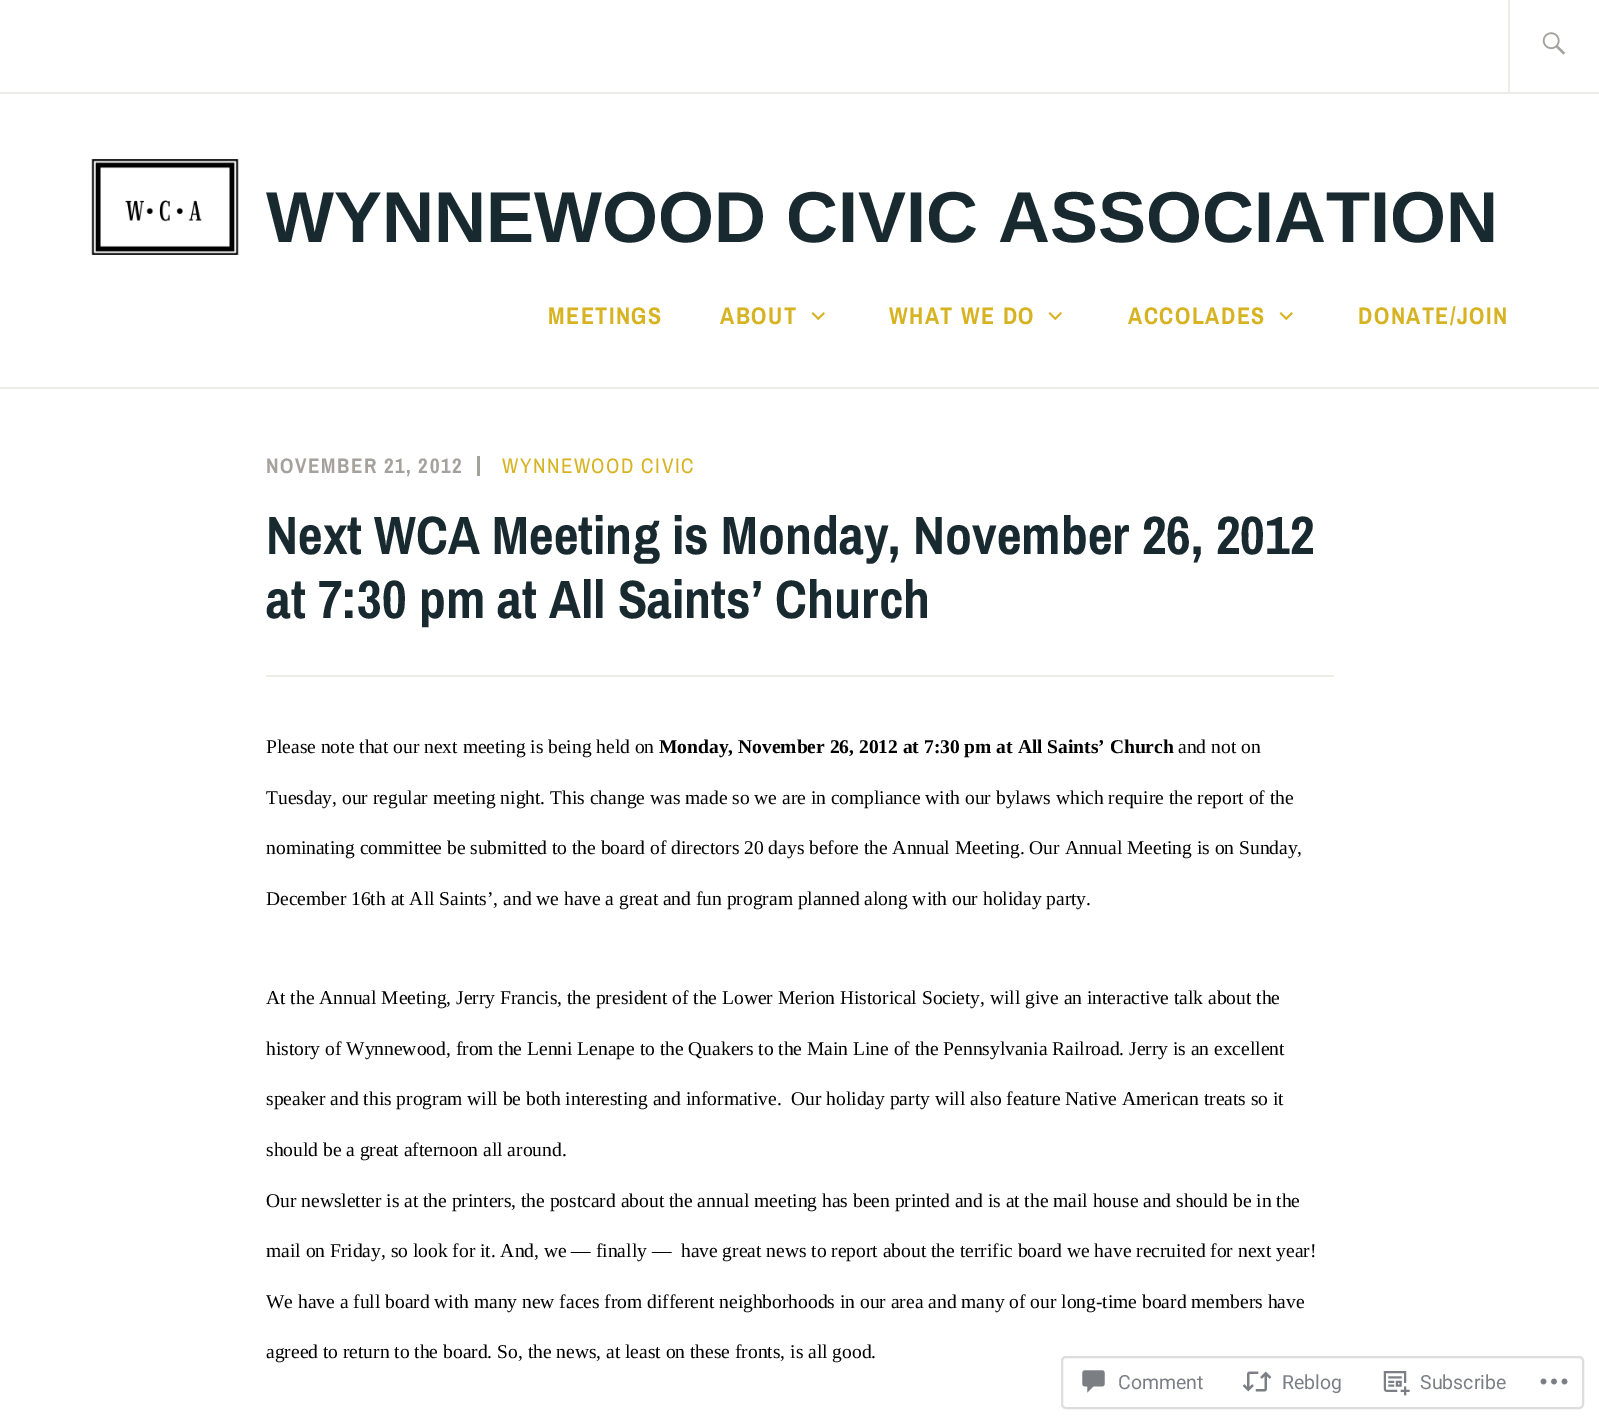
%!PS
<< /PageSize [1599 1423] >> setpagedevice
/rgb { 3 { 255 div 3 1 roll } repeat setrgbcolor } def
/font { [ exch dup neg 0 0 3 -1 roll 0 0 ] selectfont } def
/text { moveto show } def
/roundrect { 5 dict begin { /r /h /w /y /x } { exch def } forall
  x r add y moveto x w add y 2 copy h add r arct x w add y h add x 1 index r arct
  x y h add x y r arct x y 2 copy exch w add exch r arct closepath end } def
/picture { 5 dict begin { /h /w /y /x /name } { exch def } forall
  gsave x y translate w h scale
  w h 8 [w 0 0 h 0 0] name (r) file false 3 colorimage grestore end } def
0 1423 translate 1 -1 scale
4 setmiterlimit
255 255 255 rgb
0 0 1599 1423 rectfill
238 236 232 rgb
0 387 1599 2 rectfill
0 92 1599 2 rectfill
1508 0 2 92 rectfill
(img_01.rgb) 1542 32 24 23 picture
(img_02.rgb) 91 159 148 96 picture
(img_03.rgb) 811 312 14 9 picture
(img_03.rgb) 1048 312 14 9 picture
(img_03.rgb) 1279 312 14 9 picture
165 162 157 rgb
477 456 3 20 rectfill
238 236 232 rgb
266 675 1068 2 rectfill
221 221 223 rgb
2 setlinewidth
1062 1357 521 51 4 roundrect stroke
(img_04.rgb) 1082 1370 23 23 picture
(img_05.rgb) 1242 1371 30 21 picture
(img_06.rgb) 1383 1371 27 25 picture
(img_07.rgb) 1540 1378 28 7 picture
/LiberationSans-Bold 72 font
25 41 48 rgb
(WYNNEWOOD CIVIC ASSOCIATION) 266 242 text
/ArchivoNarrow-Bold 24 font
215 178 33 rgb
548 324 moveto 1.5 0 (MEETINGS) ashow
720 324 moveto 1.5 0 (ABOUT) ashow
889 324 moveto 1.5 0 (WHAT WE DO) ashow
1128 324 moveto 1.5 0 (ACCOLADES) ashow
1358 324 moveto 1.5 0 (DONATE/JOIN) ashow
/ArchivoNarrow-Bold 21 font
165 162 157 rgb
266 473 moveto 1.5 0 (NOVEMBER 21, 2012) ashow
/ArchivoNarrow-Regular 21 font
215 178 33 rgb
502 473 moveto 1.5 0 (WYNNEWOOD CIVIC) ashow
/ArchivoNarrow-Bold 54 font
25 41 48 rgb
(Next WCA Meeting is Monday, November 26, 2012) 266 554 text
(at 7:30 pm at All Saints’ Church) 266 618 text
/LiberationSerif-Regular 19.5 font
0 0 0 rgb
(Please note that our next meeting is being held on) 266 753 text
/LiberationSerif-Bold 19.5 font
(Monday, November 26, 2012 at 7:30 pm at All Saints’ Church) 659 753 text
/LiberationSerif-Regular 19.5 font
(and not on) 1178 753 text
(Tuesday, our regular meeting night. This change was made so we are in compliance with our bylaws which require the report of the) 266 804 text
(nominating committee be submitted to the board of directors 20 days before the Annual Meeting. Our Annual Meeting is on Sunday,) 266 854 text
(December 16th at All Saints’, and we have a great and fun program planned along with our holiday party.) 266 905 text
(At the Annual Meeting, Jerry Francis, the president of the Lower Merion Historical Society, will give an interactive talk about the) 266 1004 text
(history of Wynnewood, from the Lenni Lenape to the Quakers to the Main Line of the Pennsylvania Railroad. Jerry is an excellent) 266 1055 text
(speaker and this program will be both interesting and informative.  Our holiday party will also feature Native American treats so it) 266 1105 text
(should be a great afternoon all around.) 266 1156 text
(Our newsletter is at the printers, the postcard about the annual meeting has been printed and is at the mail house and should be in the) 266 1207 text
(mail on Friday, so look for it. And, we — finally —  have great news to report about the terrific board we have recruited for next year!) 266 1257 text
(We have a full board with many new faces from different neighborhoods in our area and many of our long-time board members have) 266 1308 text
(agreed to return to the board. So, the news, at least on these fronts, is all good.) 266 1358 text
/Roboto-Regular 19.5 font
123 127 133 rgb
(Comment) 1118 1389 text
(Reblog) 1282 1389 text
(Subscribe) 1420 1389 text
showpage
